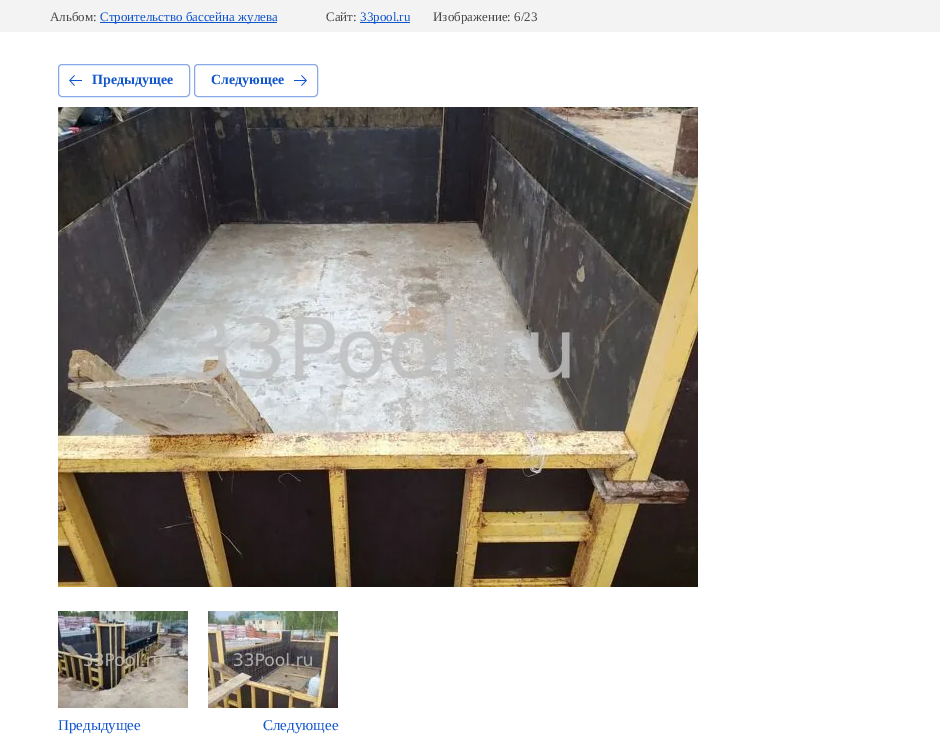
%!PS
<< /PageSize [940 744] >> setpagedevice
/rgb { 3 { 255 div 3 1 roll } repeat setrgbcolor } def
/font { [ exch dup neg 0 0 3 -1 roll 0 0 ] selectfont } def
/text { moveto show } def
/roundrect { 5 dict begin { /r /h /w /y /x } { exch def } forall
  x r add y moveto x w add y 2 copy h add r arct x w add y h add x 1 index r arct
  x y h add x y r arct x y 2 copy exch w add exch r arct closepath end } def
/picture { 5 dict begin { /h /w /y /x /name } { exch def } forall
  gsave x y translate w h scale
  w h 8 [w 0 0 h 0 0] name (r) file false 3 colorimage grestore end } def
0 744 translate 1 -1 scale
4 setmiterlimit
255 255 255 rgb
0 0 940 744 rectfill
243 243 243 rgb
0 0 940 32 rectfill
17 85 204 rgb
100 22 177 1 rectfill
360 22 50 1 rectfill
136 170 230 rgb
58.5 64.5 131 32 3.5 roundrect stroke
(img_01.rgb) 69 75 13 11 picture
194.5 64.5 123 32 3.5 roundrect stroke
(img_02.rgb) 294 75 13 11 picture
(img_03.rgb) 58 107 640 480 picture
(img_04.rgb) 58 611 130 97 picture
(img_05.rgb) 208 611 130 97 picture
/LiberationSerif-Regular 13 font
72 72 72 rgb
(Альбом:) 50 21 text
17 85 204 rgb
(Строительство бассейна жулева) 100 21 text
72 72 72 rgb
(Сайт:) 326 21 text
17 85 204 rgb
(33pool.ru) 360 21 text
72 72 72 rgb
(Изображение: 6/23) 433 21 text
/LiberationSerif-Bold 14 font
17 85 204 rgb
(Предыдущее) 92 84 text
(Следующее) 211 84 text
/LiberationSerif-Regular 15 font
(Предыдущее) 58 730 text
(Следующее) 263 730 text
showpage
